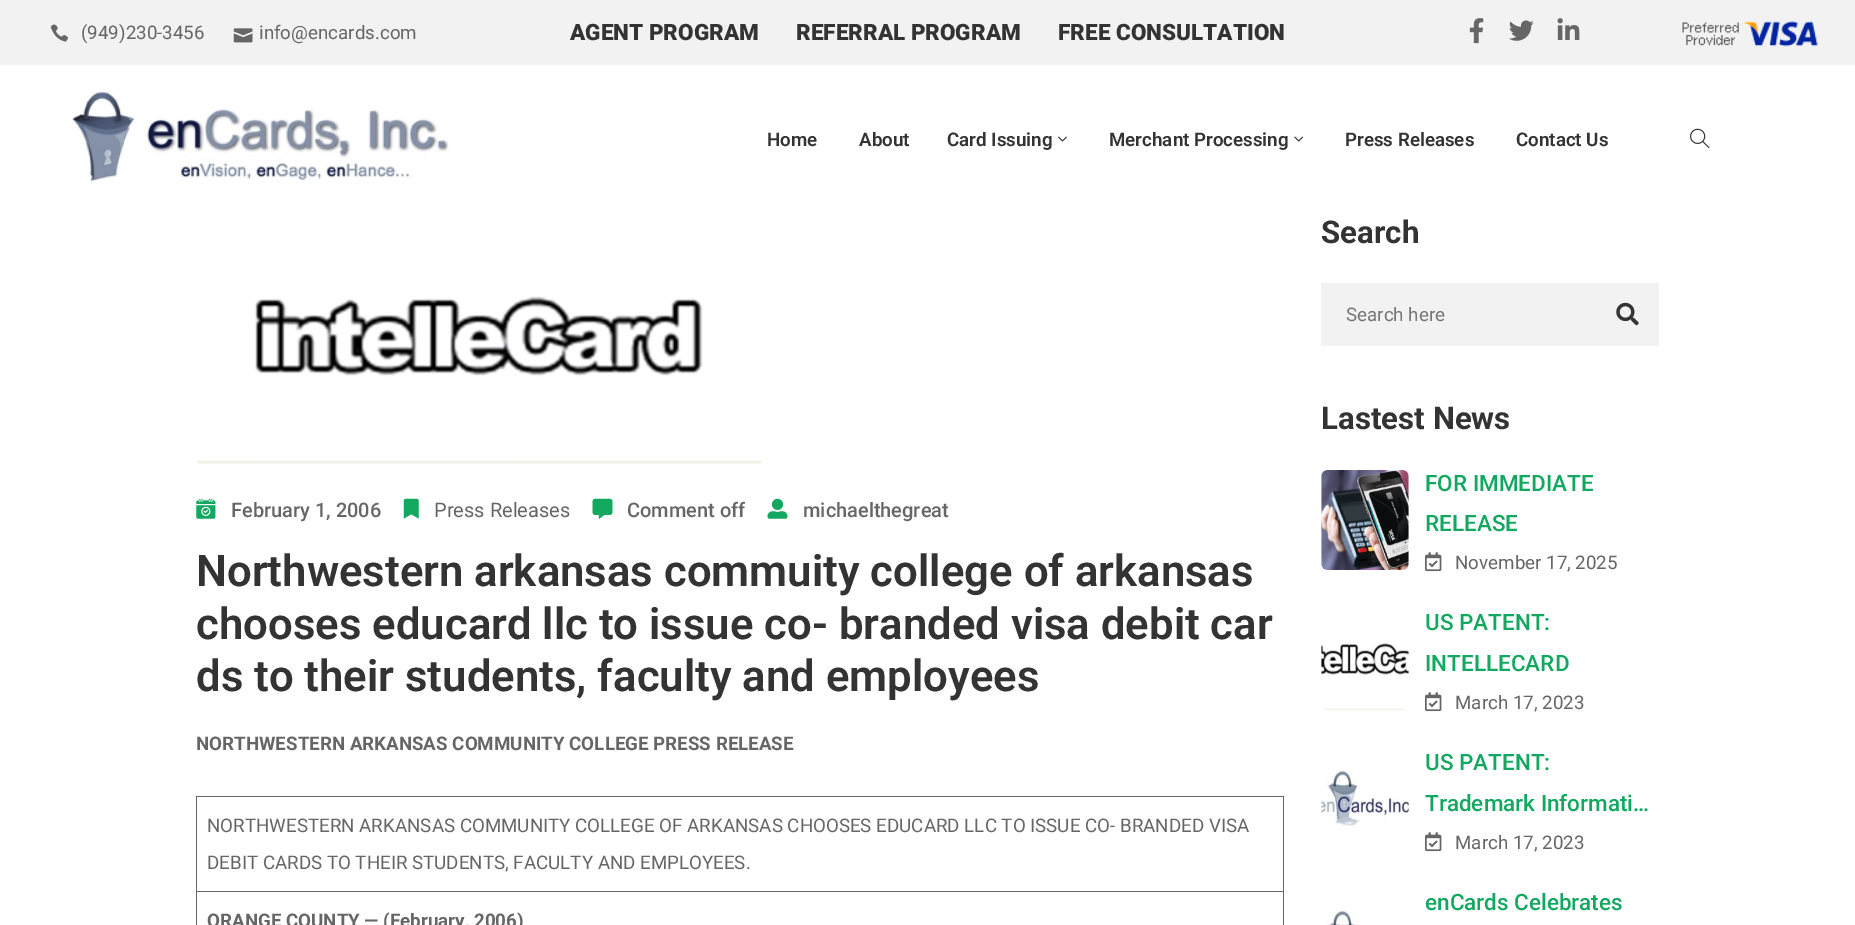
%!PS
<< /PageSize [1855 925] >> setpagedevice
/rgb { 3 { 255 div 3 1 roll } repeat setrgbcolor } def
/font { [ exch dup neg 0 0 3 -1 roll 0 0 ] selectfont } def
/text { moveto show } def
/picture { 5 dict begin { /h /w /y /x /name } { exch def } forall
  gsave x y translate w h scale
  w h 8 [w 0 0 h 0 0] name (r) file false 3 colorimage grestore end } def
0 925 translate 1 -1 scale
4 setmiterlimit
255 255 255 rgb
0 0 1855 925 rectfill
242 242 242 rgb
0 0 1855 65 rectfill
(img_01.rgb) 50 24 18 18 picture
(img_02.rgb) 233 28 20 15 picture
(img_03.rgb) 1469 18 15 26 picture
(img_04.rgb) 1509 20 25 21 picture
(img_05.rgb) 1557 18 23 22 picture
(img_06.rgb) 1682 21 136 26 picture
(img_07.rgb) 72 91 377 91 picture
(img_08.rgb) 1058 136 9 6 picture
(img_09.rgb) 1294 136 10 6 picture
(img_10.rgb) 1690 128 20 21 picture
(img_11.rgb) 196 296 566 168 picture
(img_12.rgb) 196 498 20 21 picture
(img_13.rgb) 403 498 16 21 picture
(img_14.rgb) 592 498 21 21 picture
(img_15.rgb) 767 498 21 21 picture
102 102 102 rgb
196 796 1088 1 rectfill
196 891 1088 1 rectfill
1283 891 1 34 rectfill
1283 796 1 97 rectfill
196 891 1 34 rectfill
196 796 1 97 rectfill
242 242 242 rgb
1321 283 338 63 rectfill
(img_16.rgb) 1616 302 23 24 picture
(img_17.rgb) 1321 470 88 100 picture
(img_18.rgb) 1425 552 17 20 picture
(img_19.rgb) 1321 643 88 67 picture
(img_18.rgb) 1425 692 17 20 picture
(img_20.rgb) 1321 770 88 60 picture
(img_18.rgb) 1425 832 17 20 picture
(img_21.rgb) 1326 910 35 15 picture
/Roboto-Regular 18.75 font
102 102 102 rgb
(\(949\)230-3456) 81 39 text
(info@encards.com) 259 39 text
/Roboto-Black 22.5 font
51 51 51 rgb
(AGENT PROGRAM) 570 40 text
(REFERRAL PROGRAM) 796 40 text
(FREE CONSULTATION) 1058 40 text
/Roboto-SemiBold 18.75 font
(Home) 767 146 text
(About) 859 146 text
(Card Issuing) 947 146 text
(Merchant Processing) 1109 146 text
(Press Releases) 1345 146 text
(Contact Us) 1516 146 text
/Roboto-Medium 20 font
102 102 102 rgb
(February 1, 2006) 231 517 text
/Roboto-Regular 20 font
(Press Releases) 434 517 text
/Roboto-Medium 20 font
(Comment off) 627 517 text
(michaelthegreat) 803 517 text
/Roboto-SemiBold 43.75 font
51 51 51 rgb
(Northwestern arkansas commuity college of arkansas) 196 586 text
(chooses educard llc to issue co- branded visa debit car) 196 639 text
(ds to their students, faculty and employees) 196 691 text
/Roboto-Bold 18.75 font
102 102 102 rgb
(NORTHWESTERN ARKANSAS COMMUNITY COLLEGE PRESS RELEASE) 196 750 text
/Roboto-Regular 18.75 font
(NORTHWESTERN ARKANSAS COMMUNITY COLLEGE OF ARKANSAS CHOOSES EDUCARD LLC TO ISSUE CO- BRANDED VISA) 207 832 text
(DEBIT CARDS TO THEIR STUDENTS, FACULTY AND EMPLOYEES.) 207 869 text
/Roboto-Bold 18.75 font
(ORANGE COUNTY — \(February, 2006\)) 207 927 text
/Roboto-Bold 31.25 font
51 51 51 rgb
(Search) 1321 243 text
/Roboto-Regular 18.75 font
117 117 117 rgb
(Search here) 1346 321 text
/Roboto-Bold 31.25 font
51 51 51 rgb
(Lastest News) 1321 429 text
/Roboto-Medium 22.5 font
18 168 95 rgb
(FOR IMMEDIATE) 1425 491 text
(RELEASE) 1425 531 text
/Roboto-Regular 18.75 font
102 102 102 rgb
(November 17, 2025) 1455 569 text
/Roboto-Medium 22.5 font
18 168 95 rgb
(US PATENT:) 1425 630 text
(INTELLECARD) 1425 671 text
/Roboto-Regular 18.75 font
102 102 102 rgb
(March 17, 2023) 1455 709 text
/Roboto-Medium 22.5 font
18 168 95 rgb
(US PATENT:) 1425 770 text
(Trademark Informati…) 1425 811 text
/Roboto-Regular 18.75 font
102 102 102 rgb
(March 17, 2023) 1455 849 text
/Roboto-Medium 22.5 font
18 168 95 rgb
(enCards Celebrates) 1425 910 text
showpage
